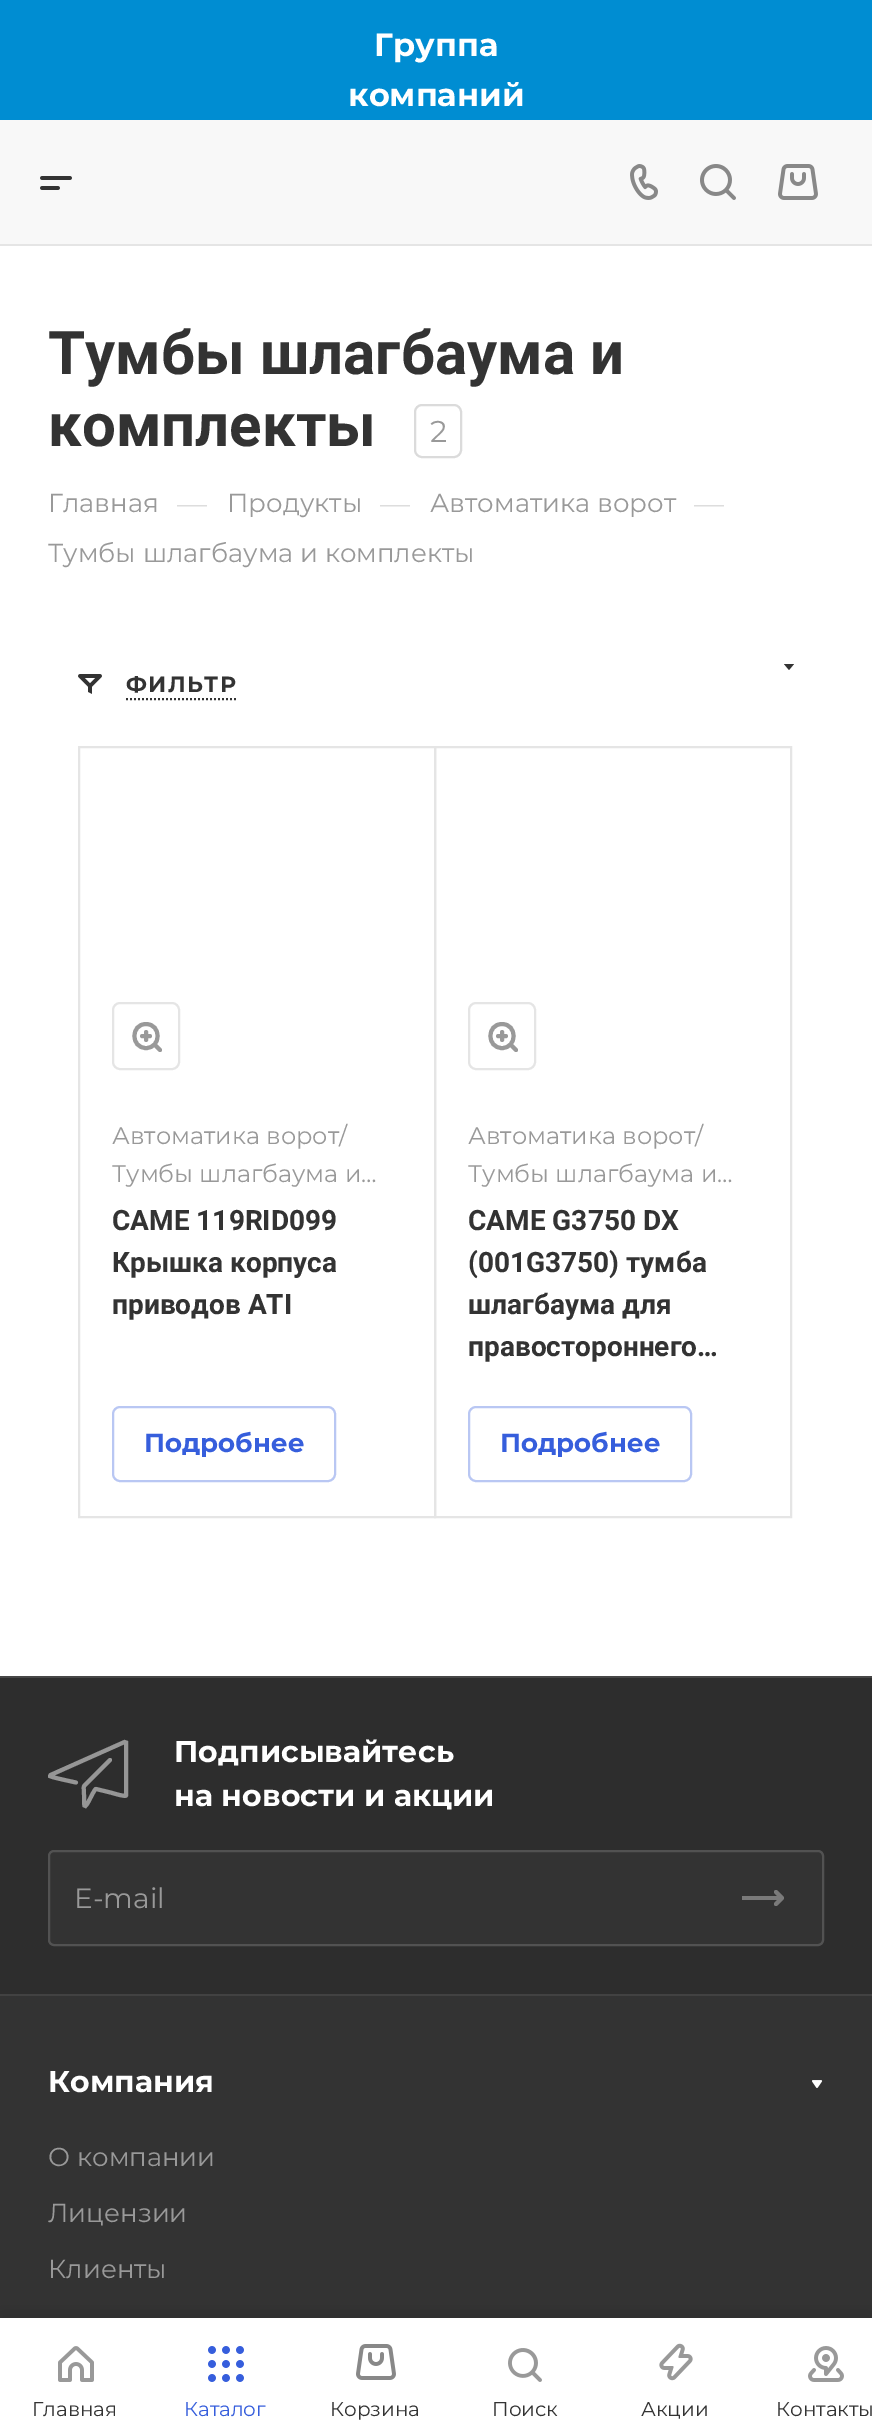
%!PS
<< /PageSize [872 2429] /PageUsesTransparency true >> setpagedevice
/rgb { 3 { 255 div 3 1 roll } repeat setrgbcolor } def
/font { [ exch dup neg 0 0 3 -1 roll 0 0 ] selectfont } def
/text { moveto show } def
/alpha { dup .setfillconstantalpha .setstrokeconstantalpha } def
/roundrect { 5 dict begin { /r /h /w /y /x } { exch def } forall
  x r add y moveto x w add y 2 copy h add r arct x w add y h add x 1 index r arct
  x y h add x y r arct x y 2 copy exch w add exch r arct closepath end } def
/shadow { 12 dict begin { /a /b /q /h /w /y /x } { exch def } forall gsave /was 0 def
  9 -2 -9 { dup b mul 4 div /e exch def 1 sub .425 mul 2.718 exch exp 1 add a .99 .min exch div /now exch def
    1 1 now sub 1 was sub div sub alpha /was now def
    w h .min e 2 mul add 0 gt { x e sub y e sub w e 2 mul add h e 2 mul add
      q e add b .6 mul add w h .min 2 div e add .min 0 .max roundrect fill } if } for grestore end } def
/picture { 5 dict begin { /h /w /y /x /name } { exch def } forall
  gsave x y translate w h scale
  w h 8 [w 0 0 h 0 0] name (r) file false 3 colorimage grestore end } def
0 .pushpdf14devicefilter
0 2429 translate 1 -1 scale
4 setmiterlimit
255 255 255 rgb
0 0 872 2429 rectfill
0 141 210 rgb
0 0 872 120 rectfill
229 229 229 rgb
0 244 872 2 rectfill
248 248 248 rgb
0 120 872 124 rectfill
(img_01.rgb) 40 176 32 14 picture
(img_02.rgb) 630 164 28 36 picture
(img_03.rgb) 700 164 36 36 picture
(img_04.rgb) 778 164 40 36 picture
219 219 219 rgb
2 setlinewidth
415 405 46 52 7 roundrect stroke
51 51 51 rgb
784 664 moveto 10 0 rlineto -5 6 rlineto closepath eofill
(img_05.rgb) 78 674 24 20 picture
[2 2] 0 setdash
126 699 moveto 112 0 rlineto stroke
229 229 229 rgb
[] 0 setdash
79 747 356 770 rectstroke
113 1003 66 66 7 roundrect stroke
153 153 153 rgb
4 setlinewidth
146 1048 moveto 15.5 0 15.5 -24 0 -24 rcurveto -15.5 0 -15.5 24 0 24 rcurveto closepath stroke
1 setlinecap
1 setlinejoin
156 1046 moveto 4 4 rlineto 146 1032 moveto 0 8 rlineto 150 1036 moveto -8 0 rlineto stroke
185 199 243 rgb
2 setlinewidth
0 setlinecap
0 setlinejoin
113 1407 222 74 7 roundrect stroke
229 229 229 rgb
435 747 356 770 rectstroke
469 1003 66 66 7 roundrect stroke
153 153 153 rgb
4 setlinewidth
502 1048 moveto 15.5 0 15.5 -24 0 -24 rcurveto -15.5 0 -15.5 24 0 24 rcurveto closepath stroke
1 setlinecap
1 setlinejoin
512 1046 moveto 4 4 rlineto 502 1032 moveto 0 8 rlineto 506 1036 moveto -8 0 rlineto stroke
185 199 243 rgb
2 setlinewidth
0 setlinecap
0 setlinejoin
469 1407 222 74 7 roundrect stroke
51 51 51 rgb
0 1996 872 322 rectfill
71 71 71 rgb
0 1676 872 2 rectfill
45 45 45 rgb
0 1678 872 316 rectfill
66 66 66 rgb
0 1994 872 2 rectfill
150 150 150 rgb
4 setlinewidth
1 setlinecap
76 1782.5 moveto -4.5 -1 -26 -5.5 -26 -6.5 rcurveto 0.5 -1 rlineto 74 -33 rlineto 1.5 0.5 rlineto 0 53 rlineto -1 1.5 -13.5 -2.5 -15.5 -3 rcurveto -14.5 -3.5 rlineto -3 0.5 -12 27 -12 13 rcurveto 0 -6.5 rlineto 0 -11 -2 -7.5 4.5 -14 rcurveto 21.5 -21.5 rlineto stroke
51 51 51 rgb
49 1851 774 94 5 roundrect gsave fill grestore
82 82 82 rgb
2 setlinewidth
0 setlinecap
stroke
122 122 122 rgb
4 setlinewidth
1 setlinecap
1 setlinejoin
776 1892 moveto 6 6 rlineto -6 6 rlineto stroke
742 1896 38 4 rectfill
(img_06.rgb) 812 2080 11 8 picture
0 0 0 rgb
0 2312 872 112 0 10 0.1 shadow
255 255 255 rgb
0 2318 872 111 rectfill
(img_07.rgb) 58 2346 36 36 picture
(img_08.rgb) 208 2346 36 36 picture
(img_09.rgb) 356 2344 40 36 picture
(img_10.rgb) 508 2348 34 34 picture
(img_11.rgb) 659 2343 34 38 picture
(img_12.rgb) 808 2346 36 36 picture
/Montserrat-Bold 32 font
(Группа) 374 56 text
(компаний) 348 106 text
/Roboto-Bold 60 font
51 51 51 rgb
(Тумбы шлагбаума и) 48 374 text
(комплекты) 48 446 text
/Montserrat-Regular 30 font
153 153 153 rgb
(2) 430 442 text
/Montserrat-Regular 26 font
(Главная) 48 512 text
/Montserrat-Regular 30 font
221 221 221 rgb
(—) 177 514 text
/Montserrat-Regular 26 font
153 153 153 rgb
(Продукты) 227 512 text
/Montserrat-Regular 30 font
221 221 221 rgb
(—) 380 514 text
/Montserrat-Regular 26 font
153 153 153 rgb
(Автоматика ворот) 430 512 text
/Montserrat-Regular 30 font
221 221 221 rgb
(—) 694 514 text
/Montserrat-Regular 26 font
153 153 153 rgb
(Тумбы шлагбаума и комплекты) 48 562 text
/Montserrat-Bold 22 font
51 51 51 rgb
126 692 moveto 1.5 0 (ФИЛЬТР) ashow
/Montserrat-Regular 24 font
153 153 153 rgb
(Автоматика ворот/) 112 1144 text
(Тумбы шлагбаума и…) 112 1182 text
/Roboto-Bold 28 font
51 51 51 rgb
(CAME 119RID099) 112 1230 text
(Крышка корпуса) 112 1272 text
(приводов ATI) 112 1314 text
/Montserrat-Bold 26 font
54 94 220 rgb
(Подробнее) 144 1452 text
/Montserrat-Regular 24 font
153 153 153 rgb
(Автоматика ворот/) 468 1144 text
(Тумбы шлагбаума и…) 468 1182 text
/Roboto-Bold 28 font
51 51 51 rgb
(CAME G3750 DX) 468 1230 text
(\(001G3750\) тумба) 468 1272 text
(шлагбаума для) 468 1314 text
(правостороннего…) 468 1356 text
/Montserrat-Bold 26 font
54 94 220 rgb
(Подробнее) 500 1452 text
/Montserrat-Bold 30 font
255 255 255 rgb
(Подписывайтесь) 174 1762 text
(на новости и акции) 174 1806 text
/Montserrat-Regular 28 font
153 153 153 rgb
(E-mail) 74 1908 text
/Montserrat-Bold 30 font
255 255 255 rgb
(Компания) 48 2092 text
/Montserrat-Regular 26 font
153 153 153 rgb
(О компании) 48 2166 text
(Лицензии) 48 2222 text
(Клиенты) 48 2278 text
/Montserrat-Regular 20 font
51 51 51 rgb
(Главная) 32 2416 text
54 94 220 rgb
(Каталог) 184 2416 text
51 51 51 rgb
(Корзина) 330 2416 text
(Поиск) 492 2416 text
(Акции) 641 2416 text
(Контакты) 776 2416 text
.poppdf14devicefilter showpage
